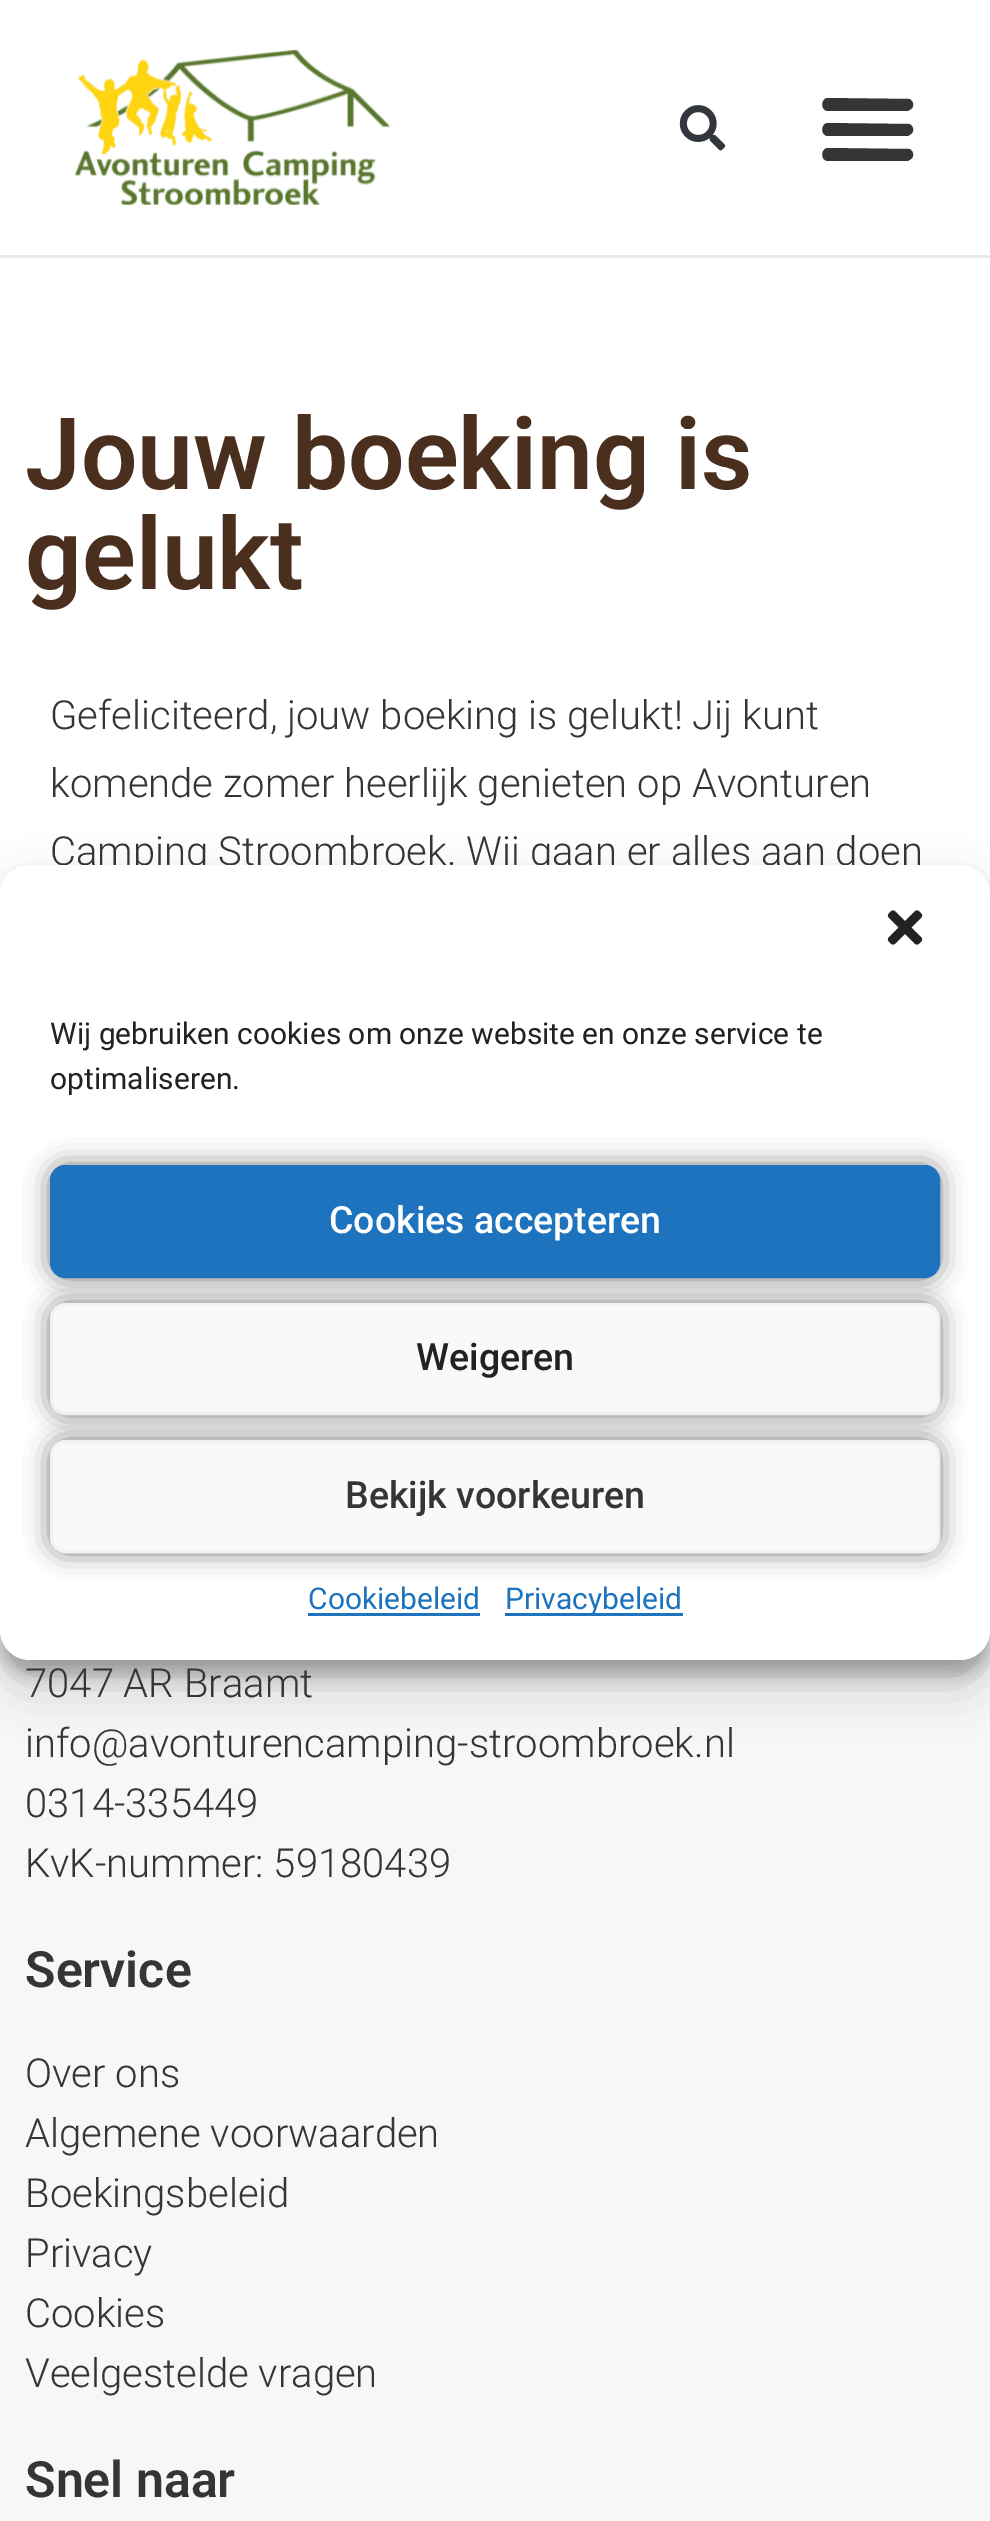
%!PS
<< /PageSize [990 2521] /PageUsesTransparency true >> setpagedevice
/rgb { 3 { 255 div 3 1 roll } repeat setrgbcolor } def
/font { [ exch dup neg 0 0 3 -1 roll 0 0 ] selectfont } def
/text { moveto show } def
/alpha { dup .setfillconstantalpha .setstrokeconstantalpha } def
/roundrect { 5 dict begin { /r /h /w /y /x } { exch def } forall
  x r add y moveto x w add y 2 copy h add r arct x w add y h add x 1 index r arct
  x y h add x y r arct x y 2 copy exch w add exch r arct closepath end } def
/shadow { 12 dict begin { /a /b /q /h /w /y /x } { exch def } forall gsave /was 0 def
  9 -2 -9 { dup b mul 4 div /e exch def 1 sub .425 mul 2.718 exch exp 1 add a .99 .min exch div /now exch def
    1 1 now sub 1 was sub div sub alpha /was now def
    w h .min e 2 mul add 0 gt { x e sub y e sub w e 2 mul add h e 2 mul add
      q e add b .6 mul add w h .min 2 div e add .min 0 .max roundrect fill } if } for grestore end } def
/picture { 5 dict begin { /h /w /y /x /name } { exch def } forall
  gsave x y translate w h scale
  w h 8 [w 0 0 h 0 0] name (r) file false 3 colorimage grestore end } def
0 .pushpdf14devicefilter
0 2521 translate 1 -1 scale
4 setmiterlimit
255 255 255 rgb
0 0 990 2521 rectfill
234 234 234 rgb
0 255 990 3 rectfill
(img_01.rgb) 75 50 315 155 picture
(img_02.rgb) 679 105 47 46 picture
52 53 52 rgb
828 111 moveto 80 0 rlineto 3 -2 rlineto 4 -3 2 -9 -2 -10 rcurveto -82 -1 rlineto -7 2 -6 13 1 13 rcurveto closepath 828 136 moveto 80 0 rlineto 3 -2 rlineto 4 -3 2 -9 -2 -10 rcurveto -82 -1 rlineto -7 2 -6 13 1 13 rcurveto closepath 828 161 moveto 80 0 rlineto 3 -2 rlineto 4 -3 2 -9 -2 -10 rcurveto -82 -1 rlineto -7 2 -6 13 1 13 rcurveto closepath fill
247 247 247 rgb
0 1630 990 891 rectfill
0 0 0 rgb
0 880 990 795 30 7.5 0.23 shadow
0 890 990 795 30 25 0.19 shadow
/Roboto-SemiBold 100 font
75 47 30 rgb
(Jouw boeking is) 25 489 text
(gelukt) 25 589 text
/Roboto-Light 40 font
52 53 52 rgb
(Gefeliciteerd, jouw boeking is gelukt! Jij kunt) 50 729 text
(komende zomer heerlijk genieten op Avonturen) 50 797 text
(Camping Stroombroek. Wij gaan er alles aan doen) 50 865 text
255 255 255 rgb
0 865 990 795 30 roundrect fill
(img_03.rgb) 887 910 36 35 picture
/Roboto-Regular 30 font
34 34 34 rgb
(Wij gebruiken cookies om onze website en onze service te) 50 1044 text
(optimaliseren.) 50 1089 text
0 0 0 rgb
50 1165 890 113 15 12.5 0.5 shadow
30 115 190 rgb
51.5 1166.5 887 110 13.5 roundrect gsave fill grestore
3 setlinewidth
stroke
/Roboto-Medium 37.5 font
255 255 255 rgb
(Cookies accepteren) 329 1233 text
0 0 0 rgb
50 1303 890 112 15 12.5 0.5 shadow
249 249 249 rgb
51.5 1304.5 887 109 13.5 roundrect gsave fill grestore
242 242 242 rgb
stroke
34 34 34 rgb
(Weigeren) 416 1370 text
0 0 0 rgb
50 1440 890 113 15 12.5 0.5 shadow
249 249 249 rgb
51.5 1441.5 887 110 13.5 roundrect gsave fill grestore
242 242 242 rgb
stroke
52 53 52 rgb
(Bekijk voorkeuren) 345 1508 text
/Roboto-Regular 30 font
30 115 190 rgb
(Cookiebeleid) 308 1609 text
308 1613 172 3 rectfill
505 1613 178 3 rectfill
(Privacybeleid) 505 1609 text
/Roboto-Light 40 font
52 53 52 rgb
(7047 AR Braamt) 25 1697 text
(info@avonturencamping-stroombroek.nl) 25 1757 text
(0314-335449) 25 1817 text
(KvK-nummer: 59180439) 25 1877 text
/Roboto-SemiBold 50 font
(Service) 25 1987 text
/Roboto-Light 40 font
(Over ons) 25 2087 text
(Algemene voorwaarden) 25 2147 text
(Boekingsbeleid) 25 2207 text
(Privacy) 25 2267 text
(Cookies) 25 2327 text
(Veelgestelde vragen) 25 2387 text
/Roboto-SemiBold 50 font
(Snel naar) 25 2497 text
.poppdf14devicefilter showpage
